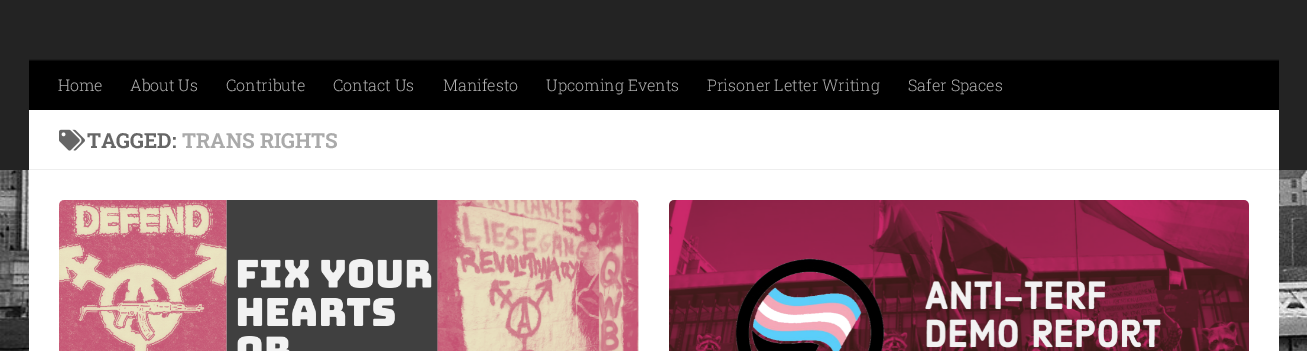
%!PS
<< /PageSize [1307 351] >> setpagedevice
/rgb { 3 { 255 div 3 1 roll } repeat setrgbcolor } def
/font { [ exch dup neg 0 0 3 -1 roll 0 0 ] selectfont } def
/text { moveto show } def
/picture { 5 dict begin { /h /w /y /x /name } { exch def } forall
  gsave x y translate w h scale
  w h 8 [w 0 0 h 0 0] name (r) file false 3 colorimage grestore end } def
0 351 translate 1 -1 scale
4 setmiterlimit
255 255 255 rgb
0 0 1307 351 rectfill
(img_01.rgb) 0 170 1307 181 picture
35 35 35 rgb
0 0 1307 170 rectfill
28 28 28 rgb
29 59 1250 1 rectfill
0 0 0 rgb
29 61 1250 49 rectfill
13 13 13 rgb
29 60 1250 1 rectfill
255 255 255 rgb
29 110 1250 241 rectfill
238 238 238 rgb
29 169 1250 1 rectfill
(img_02.rgb) 59 129 26 22 picture
(img_03.rgb) 59 200 580 151 picture
(img_04.rgb) 669 200 580 151 picture
/RobotoSlab-Light 16 font
179 179 179 rgb
(Home) 58 91 text
(About Us) 130 91 text
(Contribute) 226 91 text
(Contact Us) 333 91 text
(Manifesto) 443 91 text
(Upcoming Events) 546 91 text
(Prisoner Letter Writing) 707 91 text
(Safer Spaces) 908 91 text
/RobotoSlab-Bold 20.75 font
102 102 102 rgb
(TAGGED:) 87 148 text
170 170 170 rgb
(TRANS RIGHTS) 182 148 text
showpage
